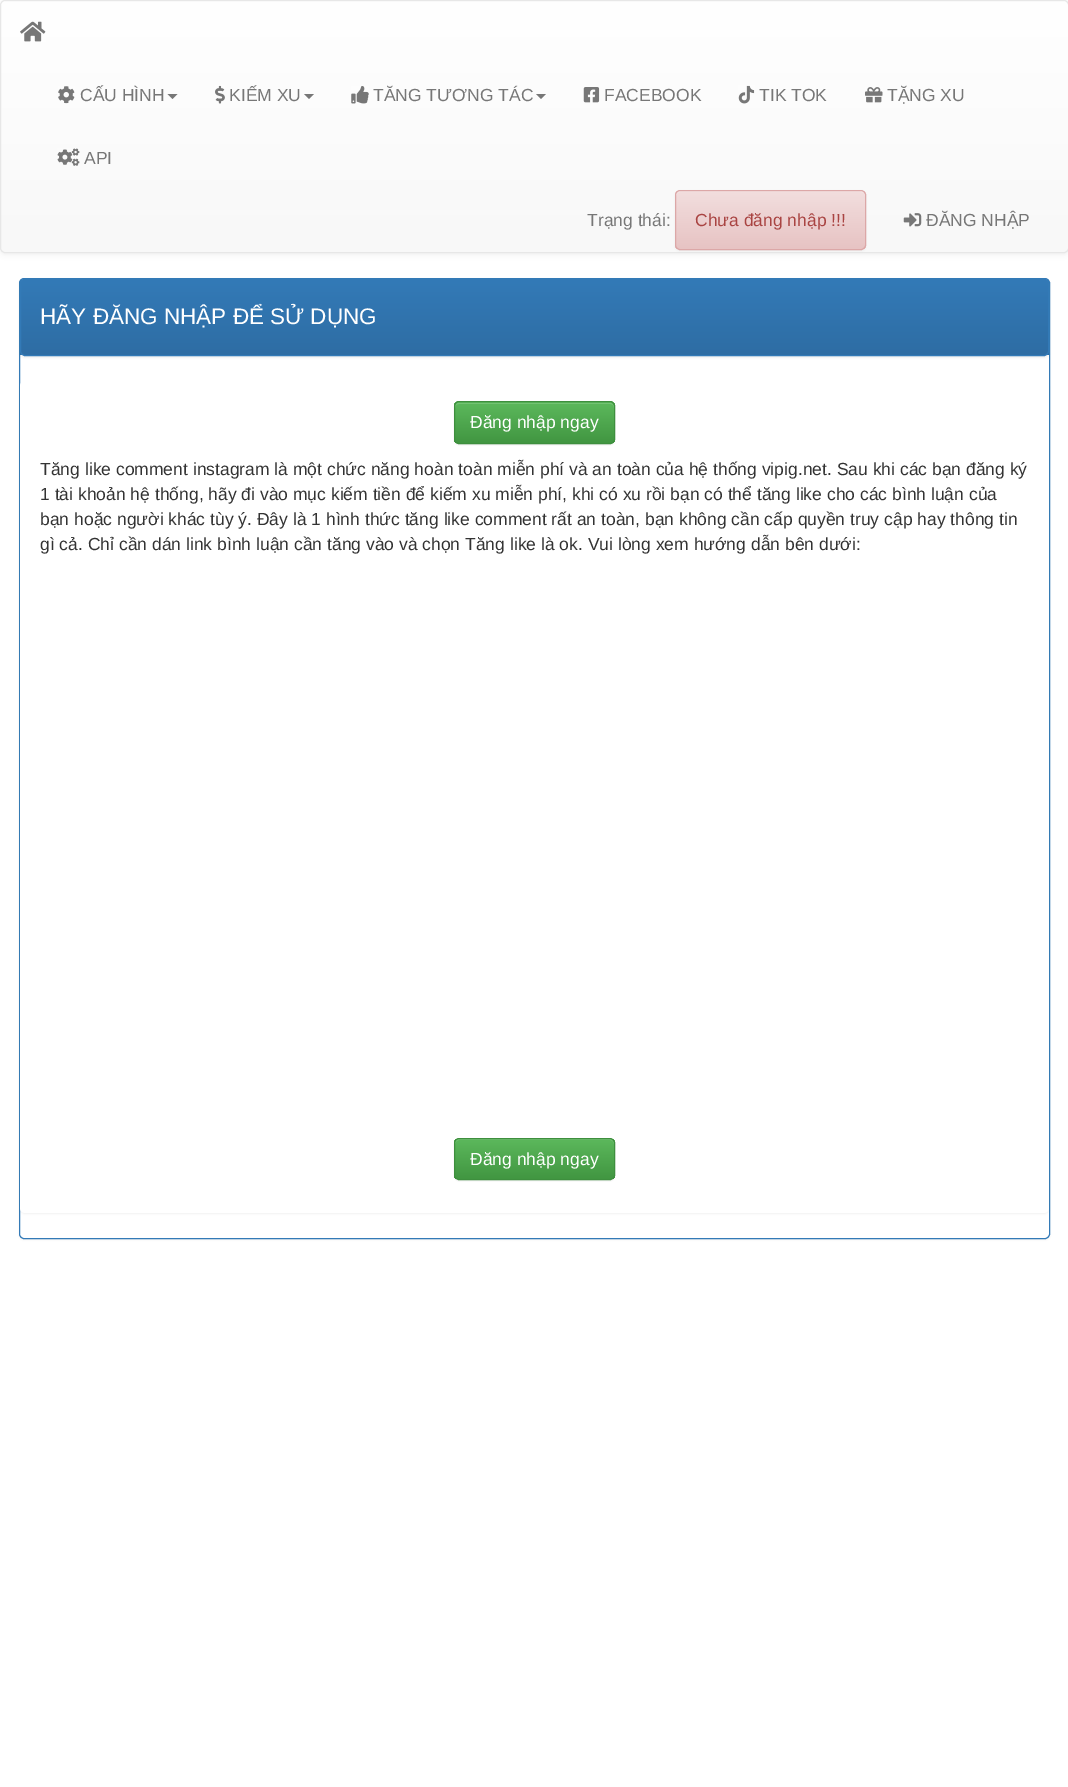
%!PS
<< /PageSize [1068 1787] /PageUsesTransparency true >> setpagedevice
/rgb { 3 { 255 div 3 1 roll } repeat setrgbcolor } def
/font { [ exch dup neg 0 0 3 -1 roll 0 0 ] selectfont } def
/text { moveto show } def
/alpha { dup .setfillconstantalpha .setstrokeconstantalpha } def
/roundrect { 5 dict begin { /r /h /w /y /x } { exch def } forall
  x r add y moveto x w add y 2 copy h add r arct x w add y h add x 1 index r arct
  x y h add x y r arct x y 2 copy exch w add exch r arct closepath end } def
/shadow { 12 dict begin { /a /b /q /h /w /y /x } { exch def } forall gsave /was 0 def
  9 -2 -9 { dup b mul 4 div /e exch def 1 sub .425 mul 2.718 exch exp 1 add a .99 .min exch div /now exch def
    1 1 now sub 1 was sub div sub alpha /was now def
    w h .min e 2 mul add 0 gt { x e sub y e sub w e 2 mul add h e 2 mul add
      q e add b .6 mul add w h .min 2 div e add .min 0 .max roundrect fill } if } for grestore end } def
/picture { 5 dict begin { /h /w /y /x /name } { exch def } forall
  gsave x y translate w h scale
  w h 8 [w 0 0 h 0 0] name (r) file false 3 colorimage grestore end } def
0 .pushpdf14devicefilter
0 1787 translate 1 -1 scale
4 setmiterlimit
255 255 255 rgb
0 0 1068 1787 rectfill
0 0 0 rgb
0 1 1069 253 5 3 0.07 shadow
248 248 248 rgb
0 0 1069 253 5 roundrect fill
gsave
0 0 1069 253 5 roundrect clip newpath
gsave 0 1 moveto 1068 0 rlineto 0 250 rlineto -1068 0 rlineto closepath clip newpath
<< /ShadingType 2 /ColorSpace /DeviceRGB /Coords [534 1.2 534 251] /Extend [true true] /Function << /FunctionType 2 /Domain [0 1] /C0 [1 1 1] /C1 [0.973 0.973 0.973] /N 1 >> >> shfill grestore
grestore
231 231 231 rgb
0.5 0.5 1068 252 4.5 roundrect stroke
(img_01.rgb) 20 21 26 21 picture
(img_02.rgb) 58 86 17 18 picture
119 119 119 rgb
167.5 94 moveto 10 0 rlineto -5 5 rlineto closepath fill
(img_03.rgb) 215 85 10 19 picture
304 94 moveto 10 0 rlineto -5 5 rlineto closepath fill
(img_04.rgb) 351 86 18 18 picture
536 94 moveto 10 0 rlineto -5 5 rlineto closepath fill
(img_05.rgb) 583 87 17 16 picture
(img_06.rgb) 738 85 17 19 picture
(img_07.rgb) 865 87 18 16 picture
(img_08.rgb) 57 148 23 18 picture
0 0 0 rgb
675 191 191 60 5 1 0.05 shadow
gsave
675 190 191 60 5 roundrect clip newpath
gsave 675 191 moveto 191 0 rlineto 0 58 rlineto -191 0 rlineto closepath clip newpath
<< /ShadingType 2 /ColorSpace /DeviceRGB /Coords [771 191 771 249] /Extend [true true] /Function << /FunctionType 2 /Domain [0 1] /C0 [0.949 0.871 0.871] /C1 [0.906 0.765 0.765] /N 1 >> >> shfill grestore
grestore
245 230 230 rgb
680 192 moveto 181 0 rlineto 2 0 4 2 4 4 rcurveto 0 -3 -1 -5 -4 -5 rcurveto -182 0 rlineto -2 1 -3 3 -3 5 rcurveto 0 -2 2 -4 4 -4 rcurveto closepath fill
220 167 167 rgb
675.5 190.5 190 59 4.5 roundrect stroke
(img_09.rgb) 903 213 19 14 picture
0 0 0 rgb
19 279 1031 961 5 1 0.05 shadow
255 255 255 rgb
19.5 278.5 1030 960 4.5 roundrect gsave fill grestore
51 122 183 rgb
stroke
0 0 0 rgb
20 280 1029 78 5 1 0.05 shadow
gsave
24 279 moveto 1021 0 rlineto 2 0 4 2 4 4 rcurveto 0 68 rlineto 0 3 -2 5 -5 5 rcurveto -1019 0 rlineto -3 0 -5 -2 -5 -5 rcurveto 0 -68 rlineto 0 -2 2 -4 4 -4 rcurveto closepath clip newpath
gsave 20 280 moveto 1029 0 rlineto 0 75 rlineto -1029 0 rlineto closepath clip newpath
<< /ShadingType 2 /ColorSpace /DeviceRGB /Coords [534 280 534 355] /Extend [true true] /Function << /FunctionType 2 /Domain [0 1] /C0 [0.2 0.478 0.718] /C1 [0.18 0.427 0.643] /N 1 >> >> shfill grestore
grestore
51 122 183 rgb
24 279.5 moveto 1021 0 rlineto 2 0 3.5 1.5 3.5 3.5 rcurveto 0 68 rlineto 0 2.5 -2 4.5 -4.5 4.5 rcurveto -1019 0 rlineto -2.5 0 -4.5 -2 -4.5 -4.5 rcurveto 0 -68 rlineto 0 -2 1.5 -3.5 3.5 -3.5 rcurveto closepath stroke
0 0 0 rgb
20 383 1029 831 5 1 0.05 shadow
255 255 255 rgb
20 381 1029 832 5 roundrect fill
0 0 0 rgb
454 403 161 42 5 0.5 0.07 shadow
92 184 92 rgb
454 401 161 43 5 roundrect fill
gsave
454 401 161 43 5 roundrect clip newpath
gsave 454 403 moveto 161 0 rlineto 0 40 rlineto -161 0 rlineto closepath clip newpath
<< /ShadingType 2 /ColorSpace /DeviceRGB /Coords [534 403 534 443] /Extend [true true] /Function << /FunctionType 2 /Domain [0 1] /C0 [0.361 0.722 0.361] /C1 [0.255 0.588 0.255] /N 1 >> >> shfill grestore
grestore
116 195 116 rgb
459 404 moveto 151 0 rlineto 2 0 4 1 4 4 rcurveto 0 -2 -1 -4 -3 -5 rcurveto -153 0 rlineto -2 1 -3 3 -3 5 rcurveto 0 -3 2 -4 4 -4 rcurveto closepath fill
62 143 62 rgb
454.5 401.5 160 42 4.5 roundrect stroke
0 0 0 rgb
454 1139 161 42 5 0.5 0.07 shadow
gsave
454 1138 161 42 5 roundrect clip newpath
gsave 454 1139 moveto 161 0 rlineto 0 40 rlineto -161 0 rlineto closepath clip newpath
<< /ShadingType 2 /ColorSpace /DeviceRGB /Coords [534 1139 534 1179] /Extend [true true] /Function << /FunctionType 2 /Domain [0 1] /C0 [0.361 0.722 0.361] /C1 [0.255 0.588 0.255] /N 1 >> >> shfill grestore
grestore
116 195 116 rgb
459 1140 moveto 151 0 rlineto 2 0 4 2 4 4 rcurveto 0 -2 -1 -4 -3 -5 rcurveto -153 0 rlineto -2 1 -3 3 -3 5 rcurveto 0 -2 2 -4 4 -4 rcurveto closepath fill
62 143 62 rgb
454.5 1138.5 160 41 4.5 roundrect stroke
/LiberationSans-Regular 17.5 font
119 119 119 rgb
(CẤU HÌNH) 80 101 text
(KIẾM XU) 229 101 text
(TĂNG TƯƠNG TÁC) 373 101 text
(FACEBOOK) 604 101 text
(TIK TOK) 759 101 text
(TẶNG XU) 887 101 text
(API) 84 164 text
(Trạng thái:) 587 226 text
169 68 66 rgb
(Chưa đăng nhập !!!) 695 226 text
119 119 119 rgb
(ĐĂNG NHẬP) 926 226 text
/LiberationSans-Regular 22.5 font
255 255 255 rgb
(HÃY ĐĂNG NHẬP ĐỂ SỬ DỤNG) 40 324 text
/LiberationSans-Regular 17.5 font
(Đăng nhập ngay) 470 428 text
51 51 51 rgb
(Tăng like comment instagram là một chức năng hoàn toàn miễn phí và an toàn của hệ thống vipig.net. Sau khi các bạn đăng ký) 40 475 text
(1 tài khoản hệ thống, hãy đi vào mục kiếm tiền để kiếm xu miễn phí, khi có xu rồi bạn có thể tăng like cho các bình luận của) 40 500 text
(bạn hoặc người khác tùy ý. Đây là 1 hình thức tăng like comment rất an toàn, bạn không cần cấp quyền truy cập hay thông tin) 40 525 text
(gì cả. Chỉ cần dán link bình luận cần tăng vào và chọn Tăng like là ok. Vui lòng xem hướng dẫn bên dưới:) 40 550 text
255 255 255 rgb
(Đăng nhập ngay) 470 1165 text
.poppdf14devicefilter showpage
